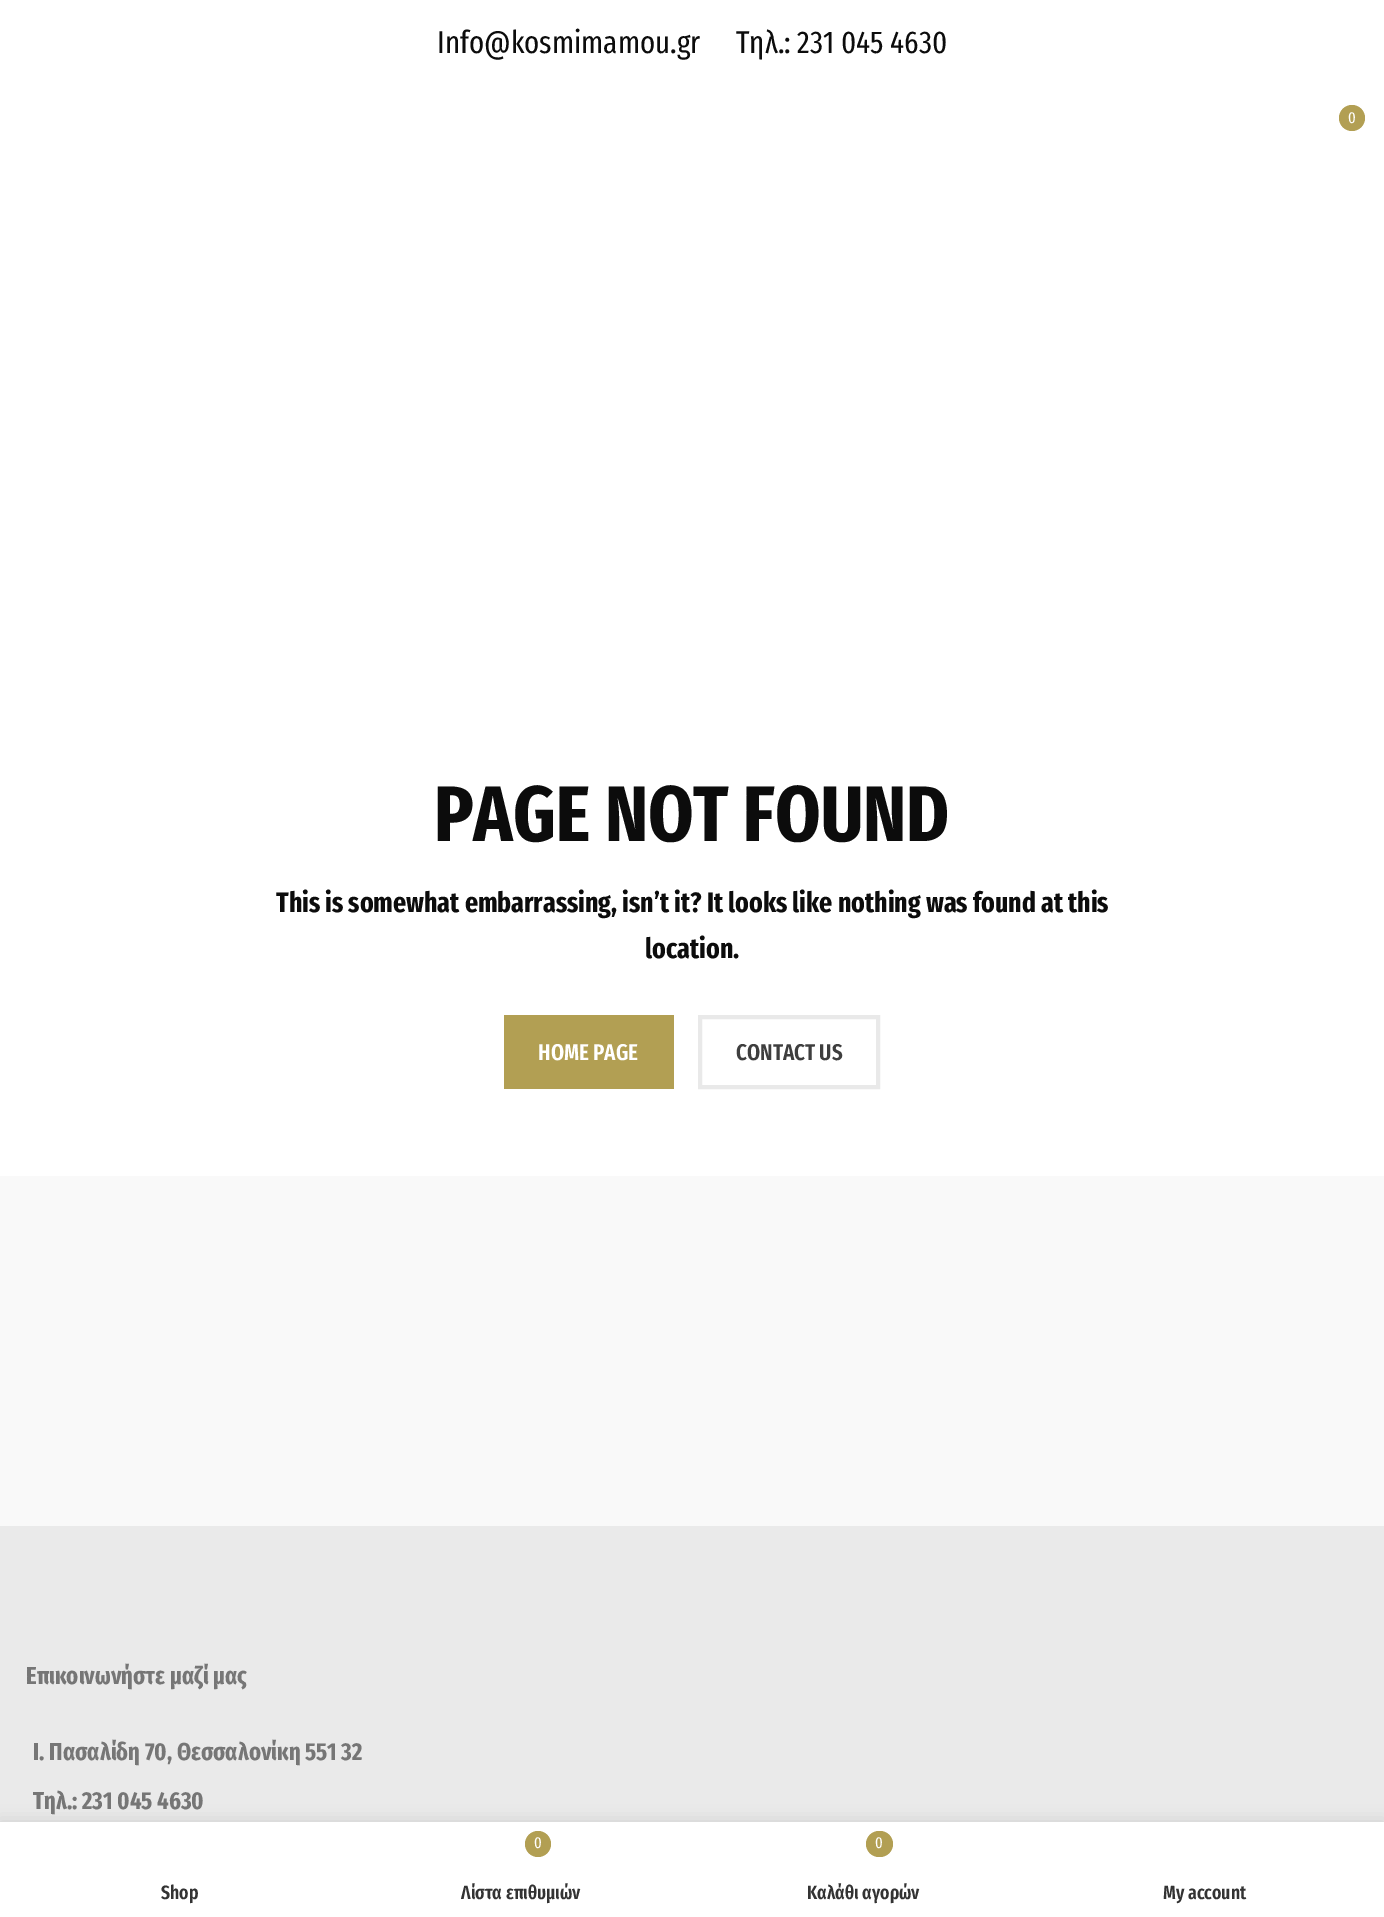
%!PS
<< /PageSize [1384 1917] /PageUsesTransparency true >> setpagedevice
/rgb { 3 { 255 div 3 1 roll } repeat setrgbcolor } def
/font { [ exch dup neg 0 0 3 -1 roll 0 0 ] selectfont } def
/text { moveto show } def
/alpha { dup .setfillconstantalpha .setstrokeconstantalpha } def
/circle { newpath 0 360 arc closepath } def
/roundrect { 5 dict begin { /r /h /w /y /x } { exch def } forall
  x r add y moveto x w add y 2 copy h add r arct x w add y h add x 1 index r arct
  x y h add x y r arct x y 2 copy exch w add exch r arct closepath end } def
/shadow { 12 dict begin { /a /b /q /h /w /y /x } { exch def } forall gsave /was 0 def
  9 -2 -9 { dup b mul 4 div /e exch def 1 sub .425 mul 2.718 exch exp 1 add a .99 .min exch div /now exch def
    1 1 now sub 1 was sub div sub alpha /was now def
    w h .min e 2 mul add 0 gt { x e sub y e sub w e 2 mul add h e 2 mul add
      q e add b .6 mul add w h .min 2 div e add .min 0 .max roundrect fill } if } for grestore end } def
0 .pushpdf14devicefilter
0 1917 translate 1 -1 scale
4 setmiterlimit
255 255 255 rgb
0 0 1384 1917 rectfill
178 159 83 rgb
1352 118 13 circle fill
504 1015 170 74 rectfill
233 233 233 rgb
4 setlinewidth
700 1017 178 70 rectstroke
249 249 249 rgb
0 1176 1384 350 rectfill
234 234 234 rgb
0 1526 1384 296 rectfill
0 0 0 rgb
0 1822 1384 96 0 8 0.12 shadow
255 255 255 rgb
0 1822 1384 95 rectfill
178 159 83 rgb
538 1844 13 circle fill
866 1831 27 26 13 roundrect fill
/FiraSansExtraCondensed-Regular 31.5 font
12 12 12 rgb
(Info@kosmimamou.gr) 437 53 text
(Τηλ.: 231 045 4630) 736 53 text
/FiraSansExtraCondensed-Regular 16 font
255 255 255 rgb
(0) 1348 123 text
/FiraSansExtraCondensed-Bold 78.75 font
12 12 12 rgb
(PAGE NOT FOUND) 434 841 text
/FiraSansExtraCondensed-Bold 28 font
(This is somewhat embarrassing, isn’t it? It looks like nothing was found at this) 276 912 text
(location.) 645 958 text
/FiraSansExtraCondensed-SemiBold 22.75 font
255 255 255 rgb
(HOME PAGE) 538 1060 text
62 62 62 rgb
(CONTACT US) 736 1060 text
/FiraSansExtraCondensed-Bold 24.5 font
118 118 118 rgb
(Επικοινωνήστε μαζί μας) 26 1684 text
(Ι. Πασαλίδη 70, Θεσσαλονίκη 551 32) 33 1760 text
(Τηλ.: 231 045 4630) 33 1809 text
/FiraSansExtraCondensed-SemiBold 19.25 font
51 51 51 rgb
(Shop) 161 1899 text
/FiraSansExtraCondensed-Regular 16 font
255 255 255 rgb
(0) 534 1848 text
/FiraSansExtraCondensed-SemiBold 19.25 font
51 51 51 rgb
(Λίστα επιθυμιών) 461 1899 text
/FiraSansExtraCondensed-Regular 16 font
255 255 255 rgb
(0) 875 1848 text
/FiraSansExtraCondensed-SemiBold 19.25 font
51 51 51 rgb
(Καλάθι αγορών) 807 1899 text
(My account) 1163 1899 text
.poppdf14devicefilter showpage
